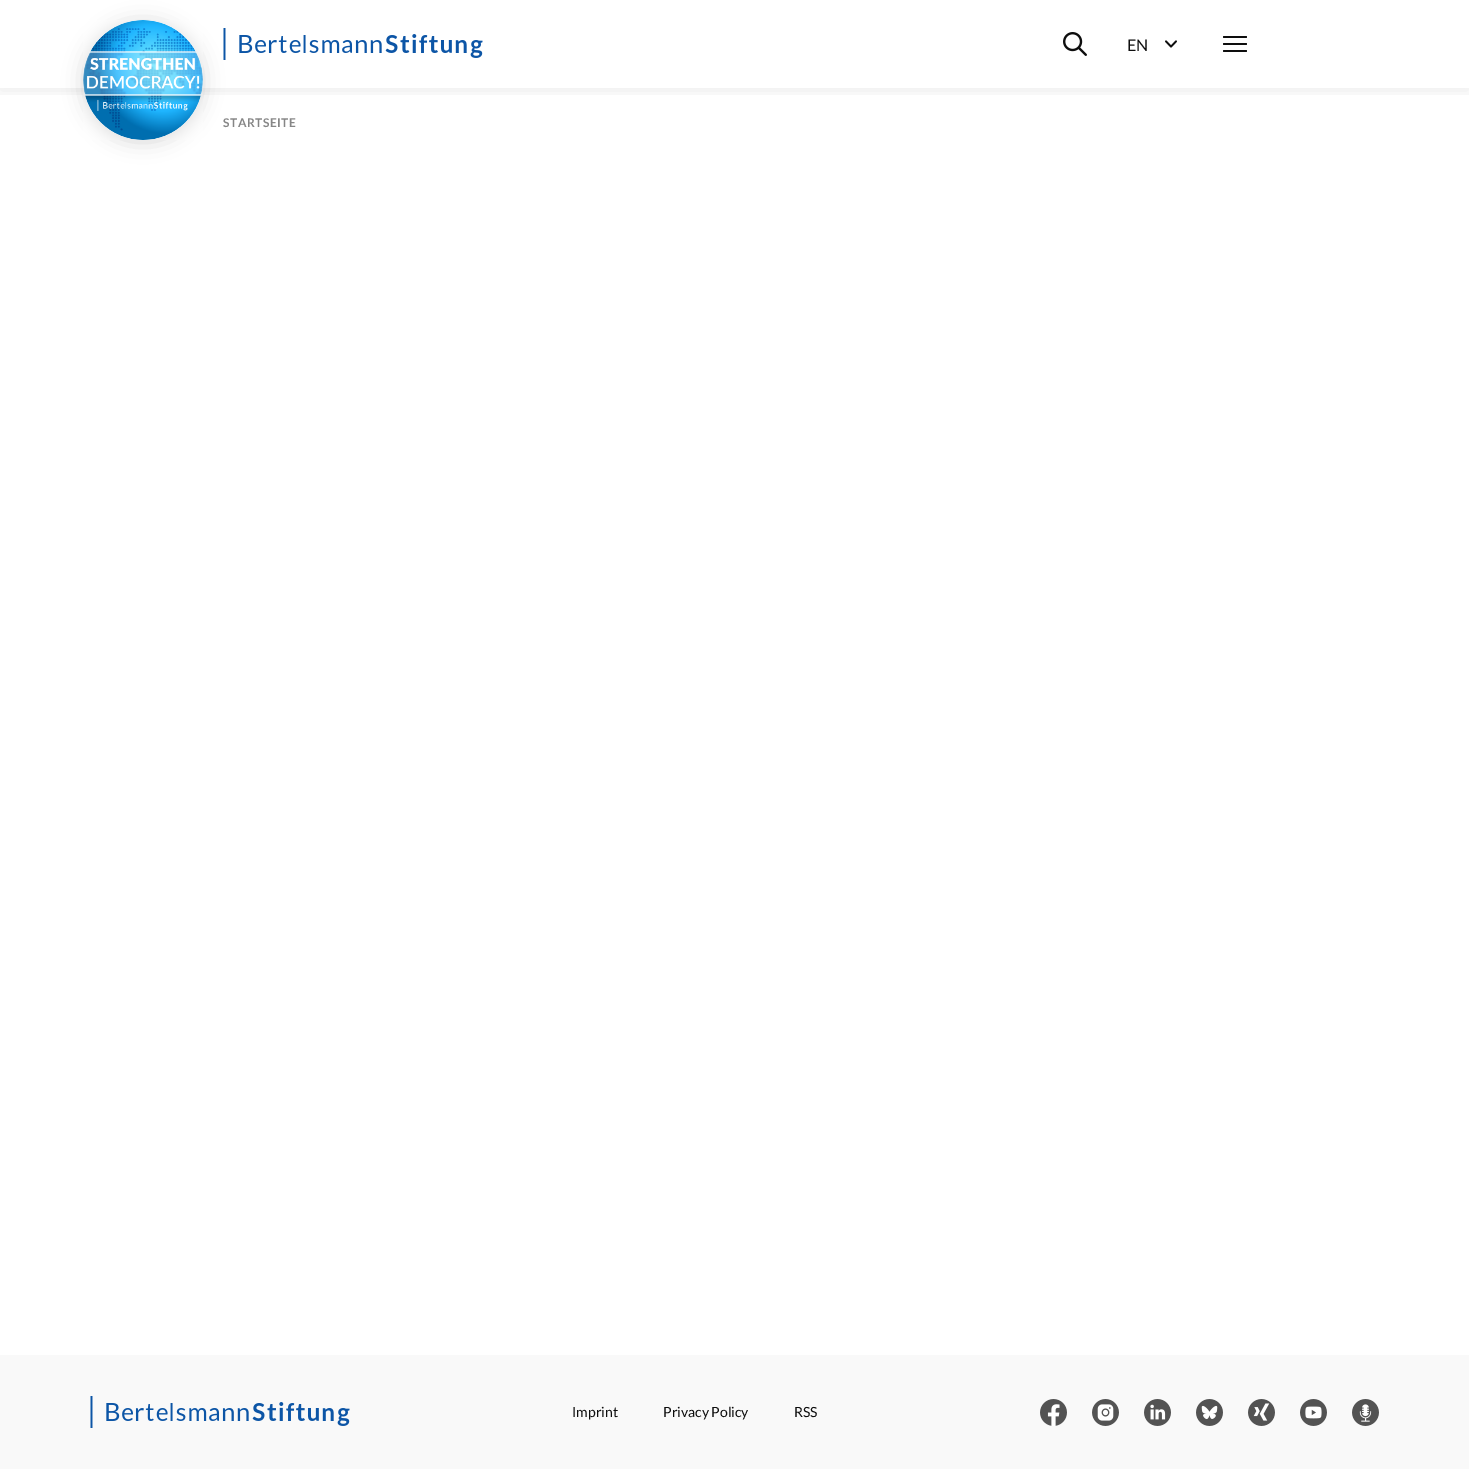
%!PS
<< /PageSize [1469 1469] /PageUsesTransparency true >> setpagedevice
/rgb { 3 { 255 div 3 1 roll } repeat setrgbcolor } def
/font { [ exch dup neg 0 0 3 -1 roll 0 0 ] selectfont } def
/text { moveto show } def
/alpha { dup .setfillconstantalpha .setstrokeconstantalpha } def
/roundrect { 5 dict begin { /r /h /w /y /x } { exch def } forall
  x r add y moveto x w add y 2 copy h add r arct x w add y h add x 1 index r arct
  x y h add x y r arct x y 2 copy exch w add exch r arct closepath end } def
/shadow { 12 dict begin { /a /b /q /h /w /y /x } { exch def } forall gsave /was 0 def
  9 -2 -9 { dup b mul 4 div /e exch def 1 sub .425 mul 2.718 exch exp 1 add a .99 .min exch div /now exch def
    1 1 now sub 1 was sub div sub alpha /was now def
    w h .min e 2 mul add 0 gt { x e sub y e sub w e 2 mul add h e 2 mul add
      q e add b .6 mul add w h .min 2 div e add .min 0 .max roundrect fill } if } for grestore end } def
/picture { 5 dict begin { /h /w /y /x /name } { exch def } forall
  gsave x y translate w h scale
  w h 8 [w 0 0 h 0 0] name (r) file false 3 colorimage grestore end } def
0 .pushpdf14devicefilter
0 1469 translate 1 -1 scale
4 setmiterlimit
255 255 255 rgb
0 0 1469 1469 rectfill
gsave
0 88 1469 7 rectclip
0 0 0 rgb
0 2 1469 88 0 7.5 0.08 shadow
grestore
(img_02.rgb) 223 28 260 32 picture
0 0 0 rgb
83 22 120 120 60 10 0.15 shadow
(img_01.rgb) 83 20 120 120 picture
(img_03.rgb) 1063 32 24 24 picture
(img_04.rgb) 1165 40 12 8 picture
14 14 14 rgb
1223 36 24 2 1 roundrect fill
1223 43 24 2 1 roundrect fill
1223 50 24 2 1 roundrect fill
249 249 249 rgb
0 1355 1469 114 rectfill
(img_05.rgb) 90 1396 260 32 picture
(img_06.rgb) 1040 1399 27 27 picture
(img_07.rgb) 1092 1399 27 27 picture
(img_08.rgb) 1144 1399 27 27 picture
(img_09.rgb) 1196 1399 27 27 picture
(img_10.rgb) 1248 1399 27 27 picture
(img_11.rgb) 1300 1399 27 27 picture
(img_12.rgb) 1352 1399 27 27 picture
/Lato-Regular 16 font
14 14 14 rgb
(EN) 1127 51 text
/Lato-Bold 12 font
134 134 134 rgb
223 127 moveto 0.5 0 (STARTSEITE) ashow
/Lato-Regular 14 font
14 14 14 rgb
(Imprint) 572 1417 text
(Privacy Policy) 663 1417 text
(RSS) 794 1417 text
.poppdf14devicefilter showpage
